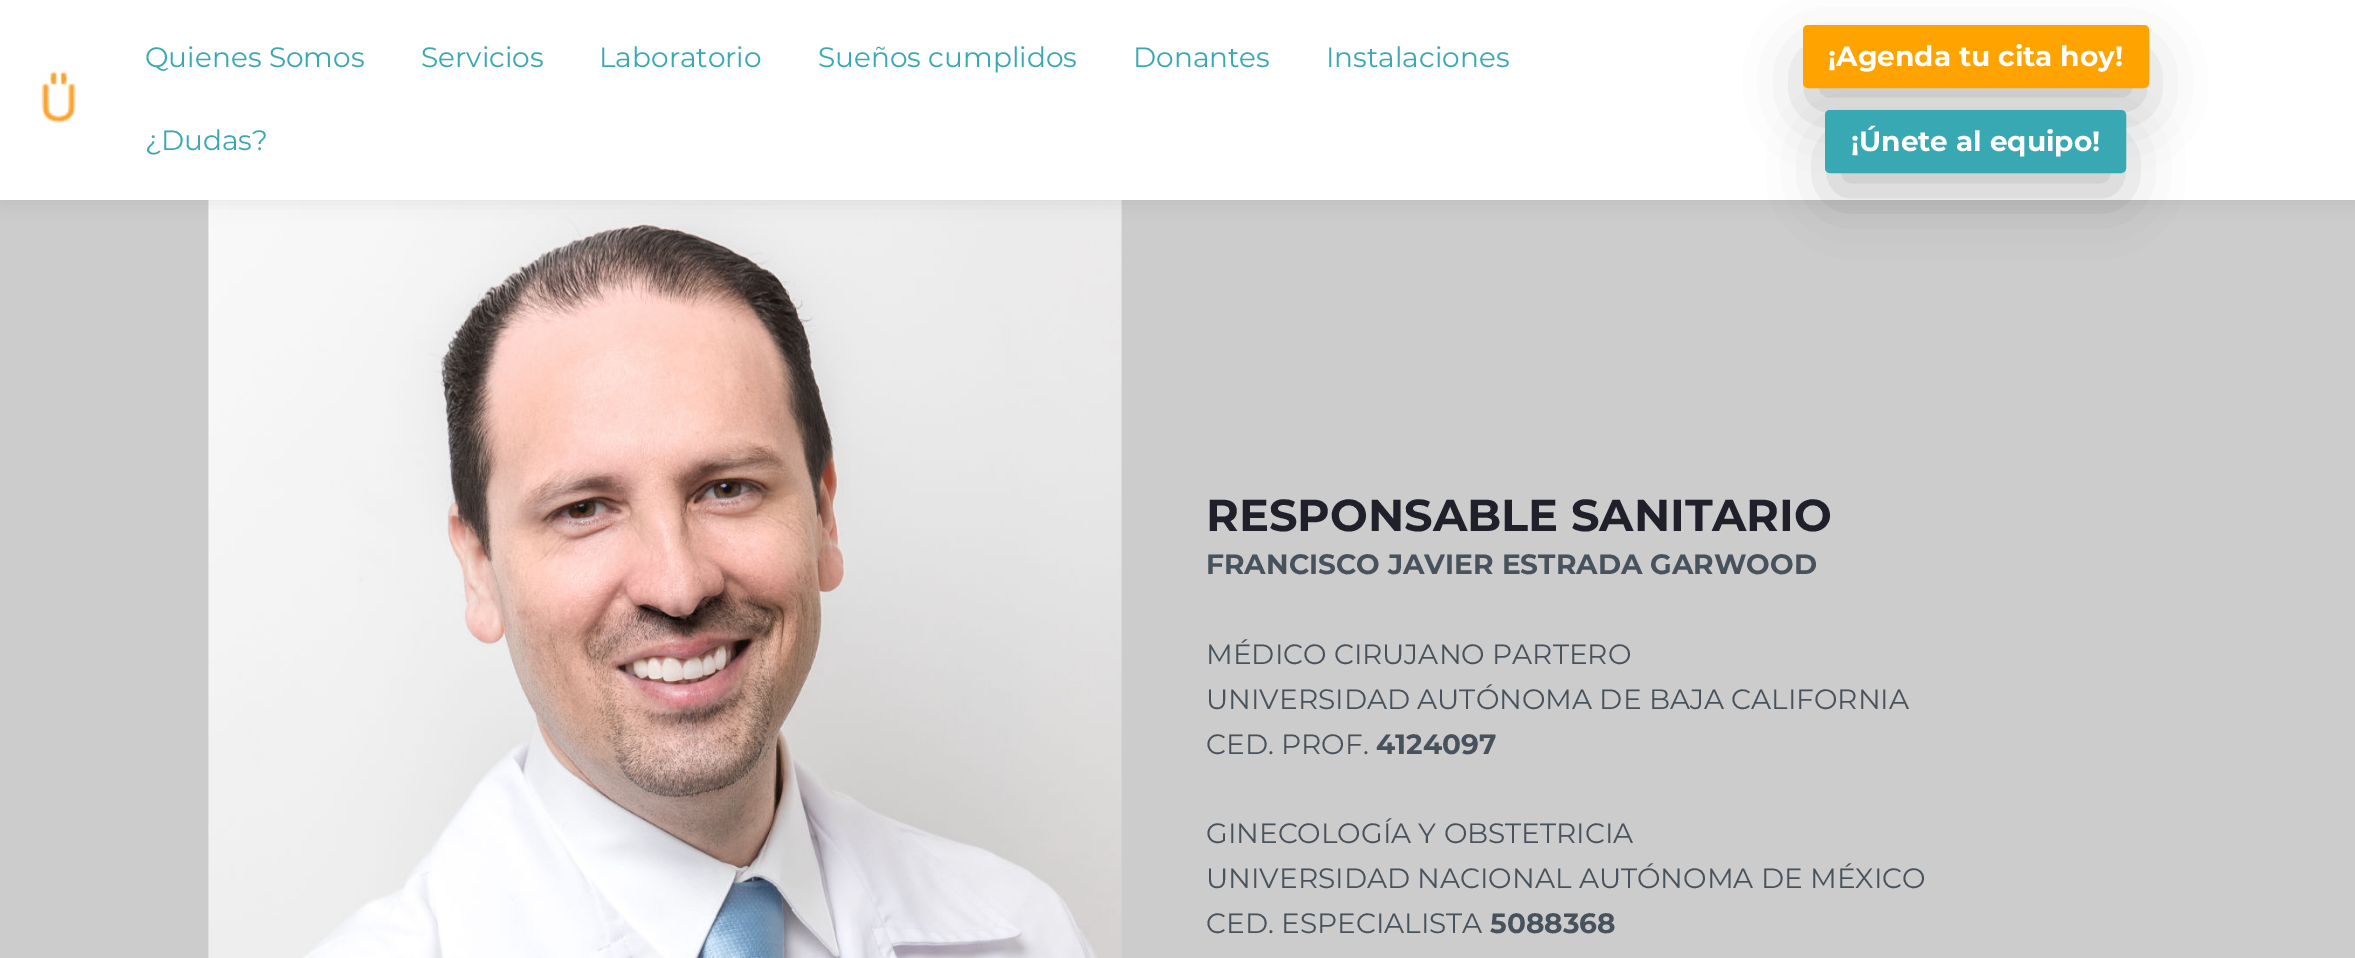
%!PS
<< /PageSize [2355 958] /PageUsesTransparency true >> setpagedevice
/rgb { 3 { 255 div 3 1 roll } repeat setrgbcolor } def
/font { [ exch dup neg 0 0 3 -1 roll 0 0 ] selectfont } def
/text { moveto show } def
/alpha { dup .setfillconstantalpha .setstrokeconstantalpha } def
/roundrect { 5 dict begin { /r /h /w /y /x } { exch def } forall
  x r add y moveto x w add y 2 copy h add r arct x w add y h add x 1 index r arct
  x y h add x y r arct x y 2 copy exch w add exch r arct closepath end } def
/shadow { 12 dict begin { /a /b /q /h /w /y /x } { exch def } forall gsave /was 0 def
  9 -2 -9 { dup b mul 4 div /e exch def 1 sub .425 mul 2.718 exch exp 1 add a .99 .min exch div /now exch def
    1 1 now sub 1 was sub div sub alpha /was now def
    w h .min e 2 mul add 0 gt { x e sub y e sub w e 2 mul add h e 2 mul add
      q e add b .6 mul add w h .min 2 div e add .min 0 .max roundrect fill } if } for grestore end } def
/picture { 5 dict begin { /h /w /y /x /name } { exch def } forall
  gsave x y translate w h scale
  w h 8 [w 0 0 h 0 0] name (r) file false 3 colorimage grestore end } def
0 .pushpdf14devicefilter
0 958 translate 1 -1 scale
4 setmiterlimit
204 204 204 rgb
0 0 2355 958 rectfill
(img_02.rgb) 208 200 914 758 picture
0 0 0 rgb
0 4 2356 199 0 9 0.07 shadow
255 255 255 rgb
0 0 2355 200 rectfill
(img_01.rgb) 41 71 35 52 picture
0 0 0 rgb
1811 60 329 45 0 30.5 0.25 shadow
255 163 0 rgb
1805 27 342 59 3 roundrect gsave fill grestore
4 setlinewidth
stroke
0 0 0 rgb
1834 145 284 46 0 30.5 0.25 shadow
56 168 179 rgb
1827 112 297 59 3 roundrect gsave fill grestore
stroke
/Montserrat-Regular 28 font
(Quienes Somos) 145 67 text
(Servicios) 421 67 text
(Laboratorio) 599 67 text
(Sueños cumplidos) 818 67 text
(Donantes) 1133 67 text
(Instalaciones) 1326 67 text
(¿Dudas?) 145 150 text
/Montserrat-Bold 28 font
255 255 255 rgb
(¡Agenda tu cita hoy!) 1828 66 text
(¡Únete al equipo!) 1851 151 text
/Montserrat-Bold 44.75 font
32 32 42 rgb
(RESPONSABLE SANITARIO) 1206 531 text
/Montserrat-Bold 28 font
72 82 92 rgb
(FRANCISCO JAVIER ESTRADA GARWOOD) 1206 574 text
/Montserrat-Regular 28 font
(MÉDICO CIRUJANO PARTERO) 1206 664 text
(UNIVERSIDAD AUTÓNOMA DE BAJA CALIFORNIA) 1206 709 text
(CED. PROF.) 1206 754 text
/Montserrat-Bold 28 font
(4124097) 1376 754 text
/Montserrat-Regular 28 font
(GINECOLOGÍA Y OBSTETRICIA) 1206 843 text
(UNIVERSIDAD NACIONAL AUTÓNOMA DE MÉXICO) 1206 888 text
(CED. ESPECIALISTA) 1206 933 text
/Montserrat-Bold 28 font
(5088368) 1490 933 text
.poppdf14devicefilter showpage
